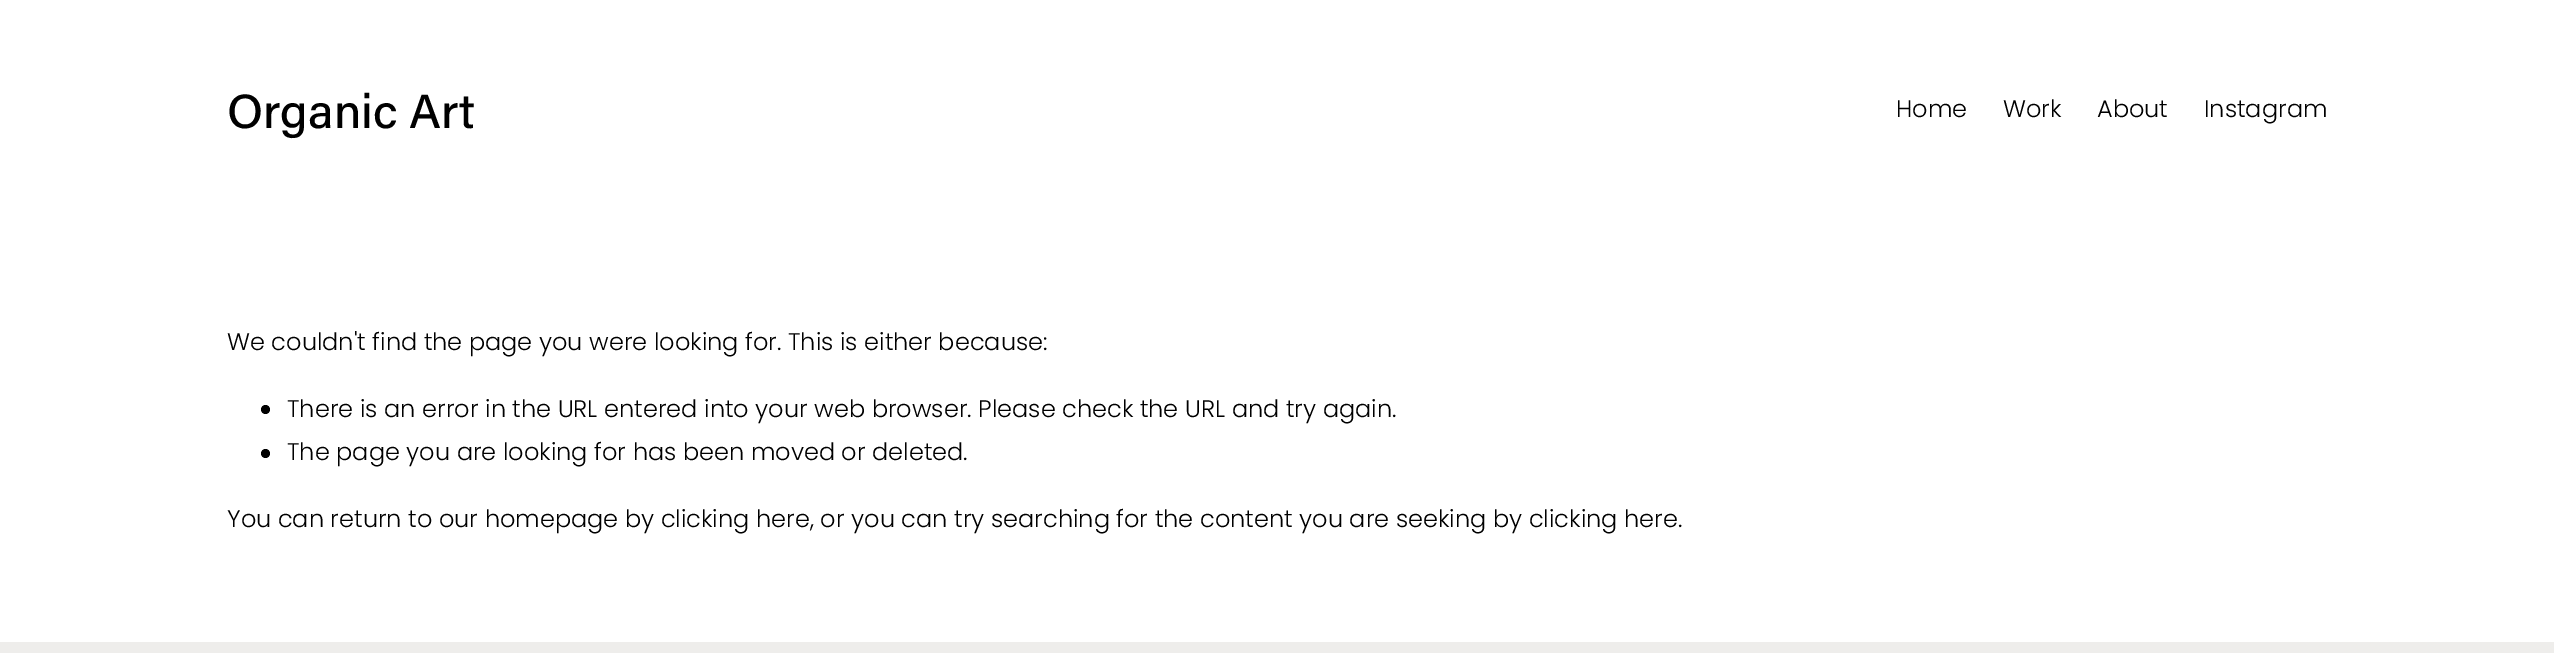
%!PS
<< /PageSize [2554 653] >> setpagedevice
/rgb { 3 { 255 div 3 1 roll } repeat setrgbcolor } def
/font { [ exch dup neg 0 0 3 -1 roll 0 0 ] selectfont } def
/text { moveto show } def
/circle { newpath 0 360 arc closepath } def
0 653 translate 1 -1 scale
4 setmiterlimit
255 255 255 rgb
0 0 2554 653 rectfill
0 0 0 rgb
265.5 409.5 4.5 circle fill
265.5 453.5 4.5 circle fill
238 237 235 rgb
0 642 2554 11 rectfill
/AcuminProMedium-Medium 48 font
0 0 0 rgb
(Organic Art) 227 128 text
/Poppins-Light 24 font
(Home) 1896 117 text
(Work) 2003 117 text
(About) 2097 117 text
(Instagram) 2204 117 text
(We couldn't find the page you were looking for. This is either because:) 227 350 text
(There is an error in the URL entered into your web browser. Please check the URL and try again.) 287 417 text
(The page you are looking for has been moved or deleted.) 287 460 text
(You can return to our homepage by clicking here, or you can try searching for the content you are seeking by clicking here.) 227 527 text
showpage
